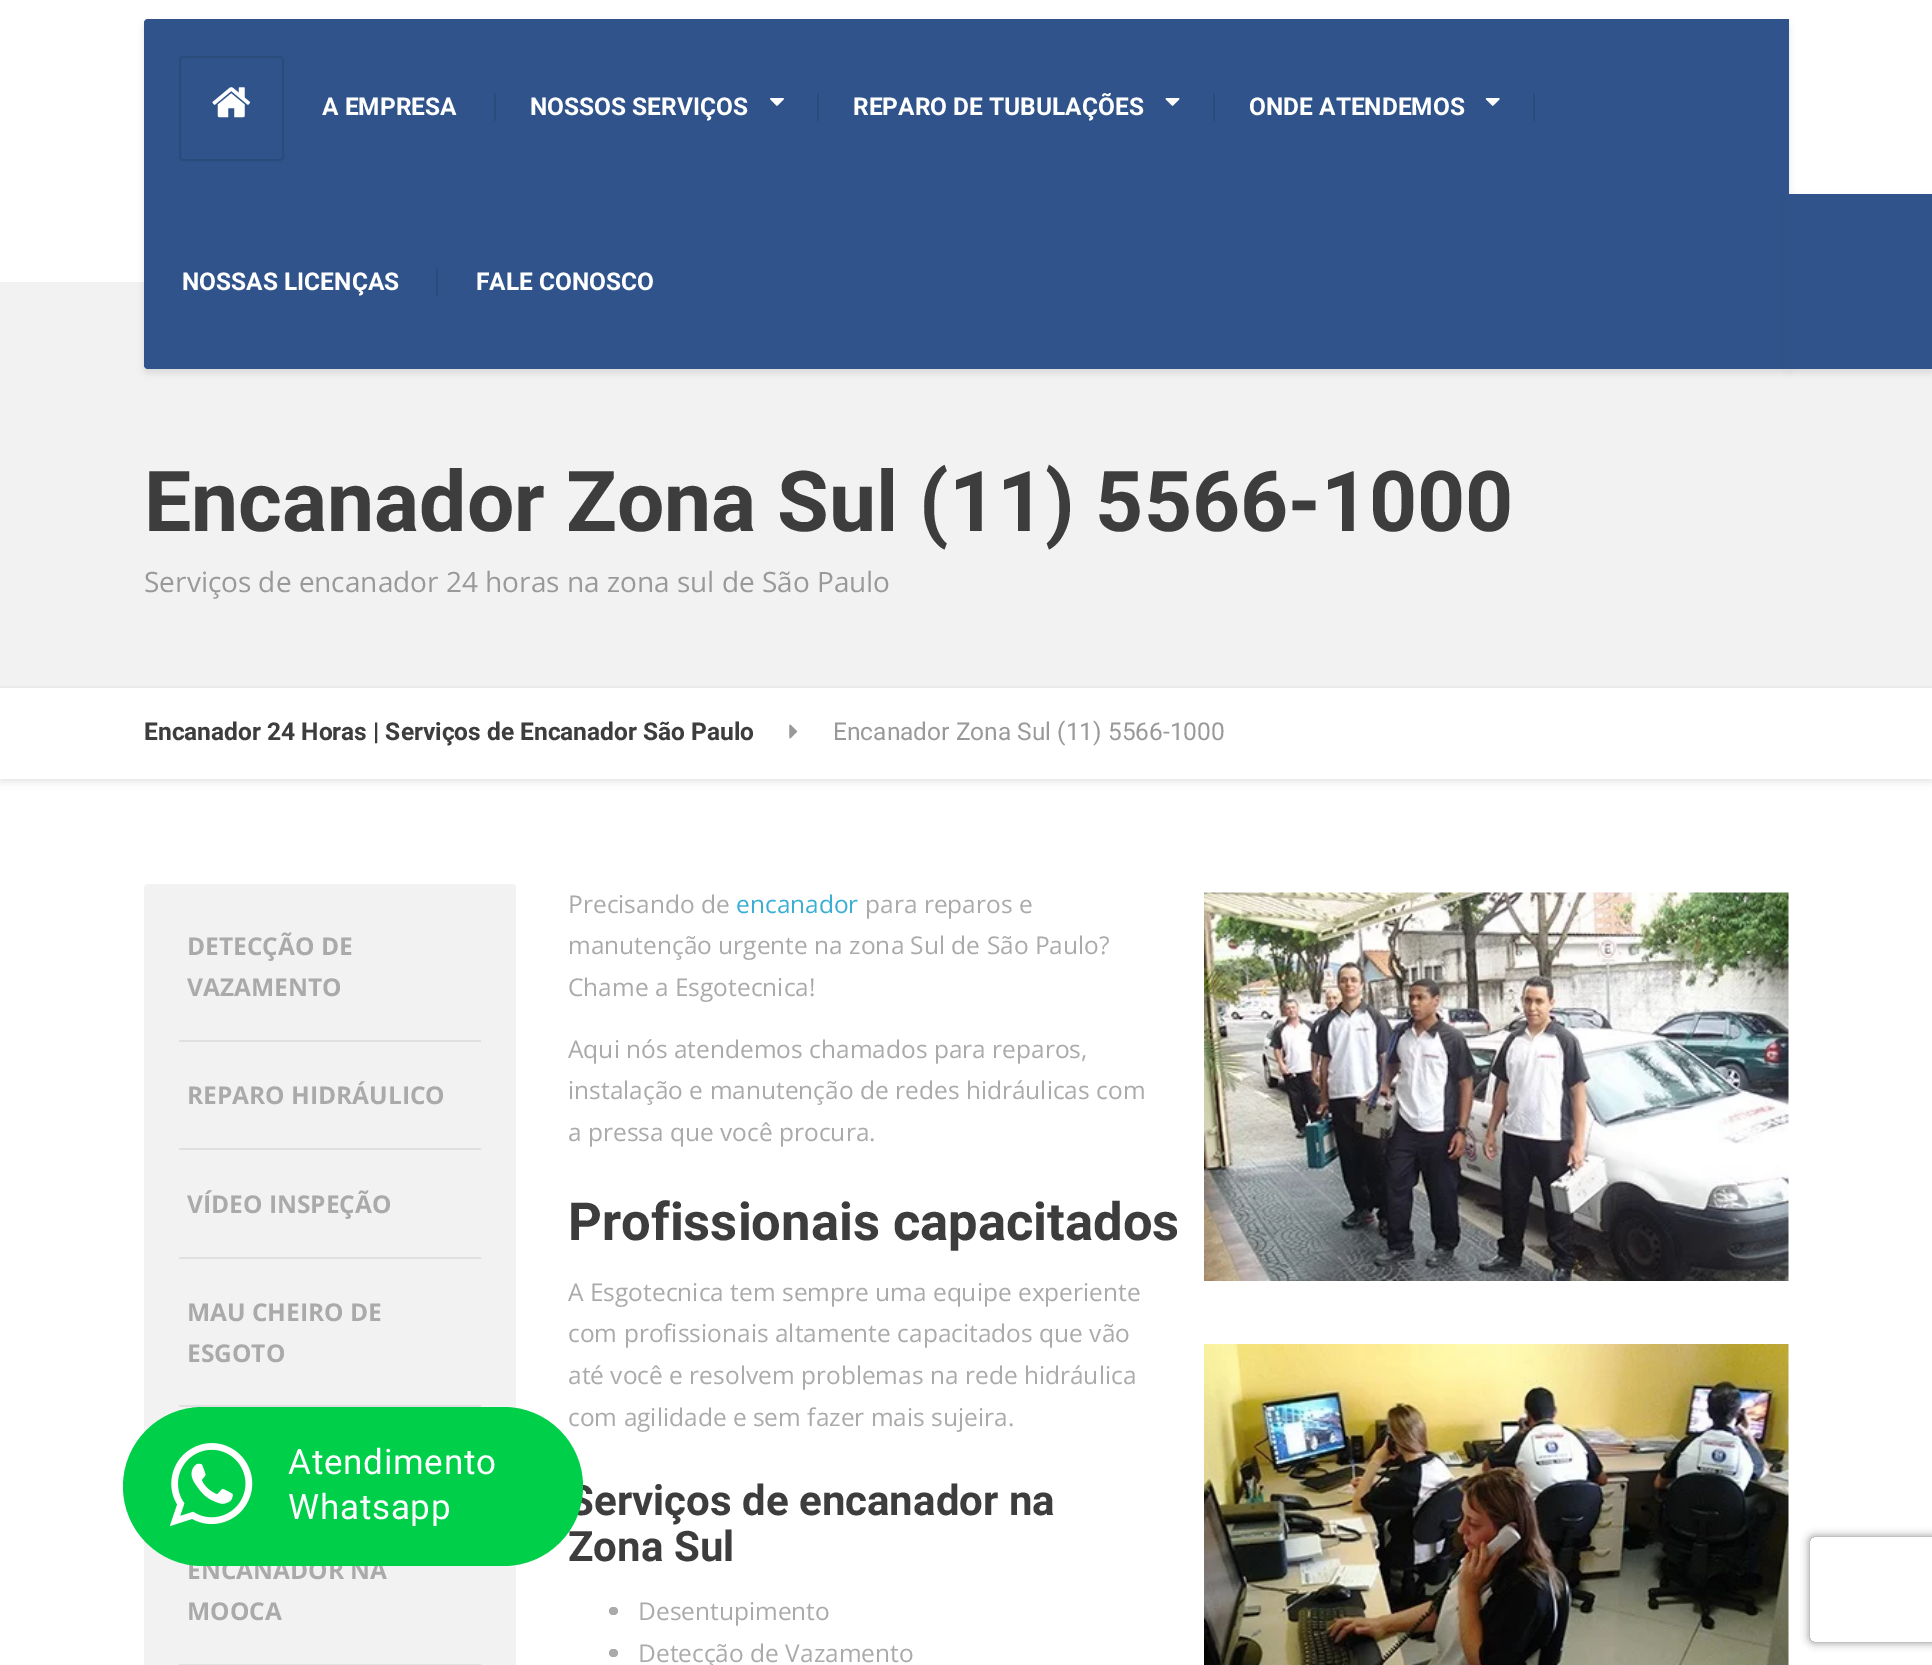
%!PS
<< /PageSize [1932 1665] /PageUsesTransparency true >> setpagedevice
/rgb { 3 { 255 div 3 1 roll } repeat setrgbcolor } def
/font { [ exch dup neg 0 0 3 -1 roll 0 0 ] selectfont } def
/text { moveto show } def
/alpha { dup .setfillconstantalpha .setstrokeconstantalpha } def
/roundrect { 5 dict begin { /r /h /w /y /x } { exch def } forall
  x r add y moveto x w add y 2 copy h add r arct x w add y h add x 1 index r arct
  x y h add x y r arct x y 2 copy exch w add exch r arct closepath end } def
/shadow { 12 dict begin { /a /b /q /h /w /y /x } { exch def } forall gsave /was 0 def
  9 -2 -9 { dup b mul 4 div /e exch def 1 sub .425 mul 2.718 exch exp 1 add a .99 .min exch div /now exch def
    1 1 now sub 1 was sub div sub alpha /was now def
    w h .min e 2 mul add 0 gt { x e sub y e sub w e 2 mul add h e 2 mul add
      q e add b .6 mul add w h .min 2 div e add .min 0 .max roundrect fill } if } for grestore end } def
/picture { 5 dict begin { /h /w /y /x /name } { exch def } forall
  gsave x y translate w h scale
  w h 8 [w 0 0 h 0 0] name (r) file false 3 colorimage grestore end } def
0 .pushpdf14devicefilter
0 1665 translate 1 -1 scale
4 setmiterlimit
255 255 255 rgb
0 0 1932 1665 rectfill
242 242 242 rgb
0 282 1932 404 rectfill
0 0 0 rgb
144 23 1645 350 4 3.5 0.1 shadow
47 83 138 rgb
144 19 1645 350 4 roundrect fill
42 75 124 rgb
2 setlinewidth
180 57 103 103 3 roundrect stroke
(img_01.rgb) 212 87 39 31 picture
494 93 2 28 rectfill
817 93 2 28 rectfill
(img_02.rgb) 770 98 14 8 picture
1213 93 2 28 rectfill
(img_03.rgb) 1165 98 15 8 picture
1533 93 2 28 rectfill
(img_04.rgb) 1485 98 15 8 picture
436 268 2 28 rectfill
0 0 0 rgb
1789 198 143 175 0 3.5 0.1 shadow
47 83 138 rgb
1785 19 4 350 rectfill
1789 194 143 175 rectfill
238 238 238 rgb
0 686 1932 2 rectfill
0 0 0 rgb
0 691 1932 91 0 3.5 0.1 shadow
255 255 255 rgb
0 688 1932 91 rectfill
(img_05.rgb) 789 724 8 15 picture
242 242 242 rgb
144 884 372 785 4 roundrect fill
224 224 224 rgb
179 1040 302 2 rectfill
179 1148 302 2 rectfill
179 1257 302 2 rectfill
179 1405 302 2 rectfill
179 1664 302 1 rectfill
170 170 170 rgb
609 1607 9 8 4 roundrect fill
609 1649 9 8 4 roundrect fill
(img_06.rgb) 1204 892 585 389 picture
(img_07.rgb) 1204 1344 585 321 picture
gsave
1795 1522 moveto 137 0 rlineto 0 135 rlineto -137 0 rlineto closepath 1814 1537 moveto 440 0 rlineto 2 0 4 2 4 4 rcurveto 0 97 rlineto 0 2 -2 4 -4 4 rcurveto -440 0 rlineto -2 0 -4 -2 -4 -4 rcurveto 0 -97 rlineto 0 -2 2 -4 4 -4 rcurveto closepath eoclip newpath
128 128 128 rgb
1810 1537 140 105 4 4.5 1 shadow
grestore
/Roboto-Bold 24.5 font
255 255 255 rgb
(A EMPRESA) 322 115 text
(NOSSOS SERVIÇOS) 530 115 text
(REPARO DE TUBULAÇÕES) 853 115 text
(ONDE ATENDEMOS) 1249 115 text
(NOSSAS LICENÇAS) 182 290 text
(FALE CONOSCO) 476 290 text
/Roboto-Bold 84 font
61 61 61 rgb
(Encanador Zona Sul \(11\) 5566-1000) 144 531 text
/OpenSans-Regular 28 font
153 153 153 rgb
(Serviços de encanador 24 horas na zona sul de São Paulo) 144 592 text
/Roboto-Bold 24.5 font
61 61 61 rgb
(Encanador 24 Horas | Serviços de Encanador São Paulo) 144 740 text
/Roboto-Regular 24.5 font
153 153 153 rgb
(Encanador Zona Sul \(11\) 5566-1000) 833 740 text
/OpenSans-Bold 24.5 font
170 170 170 rgb
(DETECÇÃO DE) 187 955 text
(VAZAMENTO) 187 996 text
(REPARO HIDRÁULICO) 187 1104 text
(VÍDEO INSPEÇÃO) 187 1213 text
(MAU CHEIRO DE) 187 1321 text
(ESGOTO) 187 1362 text
(ENCANADOR NA) 187 1579 text
(MOOCA) 187 1620 text
/OpenSans-Regular 24.5 font
(Precisando de) 568 913 text
59 174 212 rgb
(encanador) 736 913 text
170 170 170 rgb
(para reparos e) 865 913 text
(manutenção urgente na zona Sul de São Paulo?) 568 954 text
(Chame a Esgotecnica!) 568 996 text
(Aqui nós atendemos chamados para reparos,) 568 1058 text
(instalação e manutenção de redes hidráulicas com) 568 1099 text
(a pressa que você procura.) 568 1141 text
/Roboto-Bold 52.5 font
61 61 61 rgb
(Profissionais capacitados) 568 1240 text
/OpenSans-Regular 24.5 font
170 170 170 rgb
(A Esgotecnica tem sempre uma equipe experiente) 568 1301 text
(com profissionais altamente capacitados que vão) 568 1342 text
(até você e resolvem problemas na rede hidráulica) 568 1384 text
(com agilidade e sem fazer mais sujeira.) 568 1426 text
/Roboto-Bold 42 font
61 61 61 rgb
(Serviços de encanador na) 568 1515 text
(Zona Sul) 568 1561 text
/OpenSans-Regular 24.5 font
170 170 170 rgb
(Desentupimento) 638 1620 text
(Detecção de Vazamento) 638 1662 text
0 207 74 rgb
123 1407 460 159 79.5 roundrect fill
(img_08.rgb) 169 1443 84 84 picture
/Roboto-Regular 35 font
255 255 255 rgb
288 1474 moveto 0.75 0 (Atendimento) ashow
288 1519 moveto 0.75 0 (Whatsapp) ashow
.poppdf14devicefilter showpage
